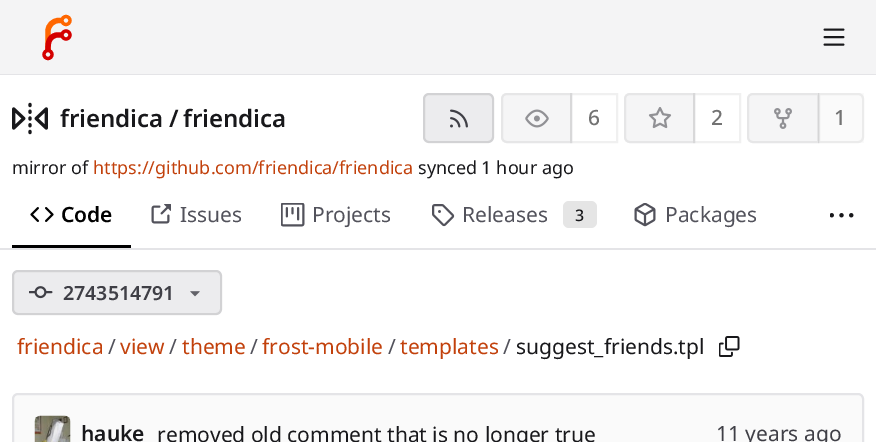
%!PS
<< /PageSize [876 442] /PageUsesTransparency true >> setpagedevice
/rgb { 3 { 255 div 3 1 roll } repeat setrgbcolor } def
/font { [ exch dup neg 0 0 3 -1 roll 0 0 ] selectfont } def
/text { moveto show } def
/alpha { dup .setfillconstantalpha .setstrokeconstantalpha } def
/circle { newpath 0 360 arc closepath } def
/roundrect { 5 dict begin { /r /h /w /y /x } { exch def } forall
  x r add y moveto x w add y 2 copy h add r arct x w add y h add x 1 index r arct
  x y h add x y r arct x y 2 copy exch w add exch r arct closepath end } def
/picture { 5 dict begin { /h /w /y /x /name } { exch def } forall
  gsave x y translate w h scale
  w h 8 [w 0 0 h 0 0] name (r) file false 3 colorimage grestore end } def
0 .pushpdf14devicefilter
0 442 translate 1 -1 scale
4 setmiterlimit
255 255 255 rgb
0 0 876 442 rectfill
244 244 245 rgb
0 0 876 74 rectfill
228 228 231 rgb
0 74 876 1 rectfill
255 102 0 rgb
5.3 setlinewidth
48 52 moveto 0 -21 rlineto 0 -5.5 5 -10.5 10.5 -10.5 rcurveto 4.5 0 rlineto stroke
212 0 0 rgb
48 52 moveto 0 -7 -0.5 -15 8.5 -17 rcurveto 6.5 0 rlineto stroke
255 102 0 rgb
3.2 setlinewidth
66 20.5 4 circle stroke
212 0 0 rgb
66 35 4 circle stroke
48 54.5 4 circle stroke
(img_01.rgb) 823 28 22 18 picture
(img_02.rgb) 12 102 36 33 picture
236 236 238 rgb
423 93 71 50 6 roundrect fill
0.11 alpha
0 0 0 rgb
2 setlinewidth
424 94 69 48 5 roundrect stroke
1 alpha
(img_03.rgb) 450 109 18 19 picture
245 245 246 rgb
507 94 moveto 64 0 rlineto 0 48 rlineto -64 0 rlineto -3 0 -5 -2 -5 -5 rcurveto 0 -38 rlineto 0 -3 2 -5 5 -5 rcurveto closepath gsave fill grestore
230 230 231 rgb
stroke
(img_04.rgb) 525 109 24 19 picture
0.06 alpha
0 0 0 rgb
571 94 46 48 rectstroke
1 alpha
245 245 246 rgb
630 94 moveto 64 0 rlineto 0 48 rlineto -64 0 rlineto -3 0 -5 -2 -5 -5 rcurveto 0 -38 rlineto 0 -3 2 -5 5 -5 rcurveto closepath gsave fill grestore
230 230 231 rgb
stroke
(img_05.rgb) 648 107 24 22 picture
0.06 alpha
0 0 0 rgb
694 94 46 48 rectstroke
1 alpha
245 245 246 rgb
753 94 moveto 65 0 rlineto 0 48 rlineto -65 0 rlineto -3 0 -5 -2 -5 -5 rcurveto 0 -38 rlineto 0 -3 2 -5 5 -5 rcurveto closepath gsave fill grestore
230 230 231 rgb
stroke
(img_06.rgb) 774 108 18 21 picture
0.04 alpha
115 115 115 rgb
818 93 46 50 rectfill
0.11 alpha
819 94 moveto 39 0 rlineto 3 0 5 2 5 5 rcurveto 0 38 rlineto 0 3 -2 5 -5 5 rcurveto -39 0 rlineto closepath stroke
1 alpha
0 0 0 rgb
12 245 119 3 rectfill
(img_07.rgb) 30 207 24 15 picture
(img_08.rgb) 151 204 20 20 picture
(img_09.rgb) 281 203 24 24 picture
(img_10.rgb) 432 204 23 23 picture
229 229 229 rgb
563 201 34 27 6 roundrect fill
(img_11.rgb) 634 203 22 24 picture
(img_12.rgb) 830 213 24 5 picture
228 228 231 rgb
0 248 876 2 rectfill
236 236 238 rgb
12 270 210 45 6 roundrect fill
0.11 alpha
0 0 0 rgb
13 271 208 43 5 roundrect stroke
1 alpha
(img_13.rgb) 29 286 24 13 picture
(img_14.rgb) 190 291 10 6 picture
(img_15.rgb) 719 336 21 21 picture
250 250 250 rgb
13 394 850 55 5 roundrect gsave fill grestore
228 228 231 rgb
stroke
(img_16.rgb) 34 415 37 27 picture
/NotoSans-SemiBold 24 font
24 24 27 rgb
(friendica) 60 127 text
(/) 169 127 text
(friendica) 183 127 text
/NotoSans-Medium 21 font
115 115 115 rgb
(6) 588 125 text
(2) 711 125 text
(1) 834 125 text
/NotoSans-Regular 18 font
24 24 27 rgb
(mirror of) 12 174 text
194 65 12 rgb
(https://github.com/friendica/friendica) 93 174 text
24 24 27 rgb
(synced 1 hour ago) 418 174 text
/NotoSans-SemiBold 21 font
0 0 0 rgb
(Code) 61 222 text
/NotoSans-Regular 21 font
82 82 91 rgb
(Issues) 180 222 text
(Projects) 312 222 text
(Releases) 462 222 text
/NotoSans-Medium 16 font
24 24 27 rgb
(3) 575 221 text
/NotoSans-Regular 21 font
82 82 91 rgb
(Packages) 665 222 text
/NotoSans-SemiBold 19.5 font
63 63 70 rgb
(2743514791) 63 300 text
/NotoSans-Regular 21 font
194 65 12 rgb
(friendica) 17 354 text
82 82 91 rgb
(/) 108 354 text
194 65 12 rgb
(view) 120 354 text
82 82 91 rgb
(/) 169 354 text
194 65 12 rgb
(theme) 182 354 text
82 82 91 rgb
(/) 250 354 text
194 65 12 rgb
(frost-mobile) 262 354 text
82 82 91 rgb
(/) 388 354 text
194 65 12 rgb
(templates) 400 354 text
82 82 91 rgb
(/) 503 354 text
24 24 27 rgb
(suggest_friends.tpl) 516 354 text
/NotoSans-SemiBold 21 font
(hauke) 81 441 text
/NotoSans-Regular 21 font
(removed old comment that is no longer true) 157 442 text
63 63 70 rgb
(11 years ago) 716 441 text
.poppdf14devicefilter showpage
